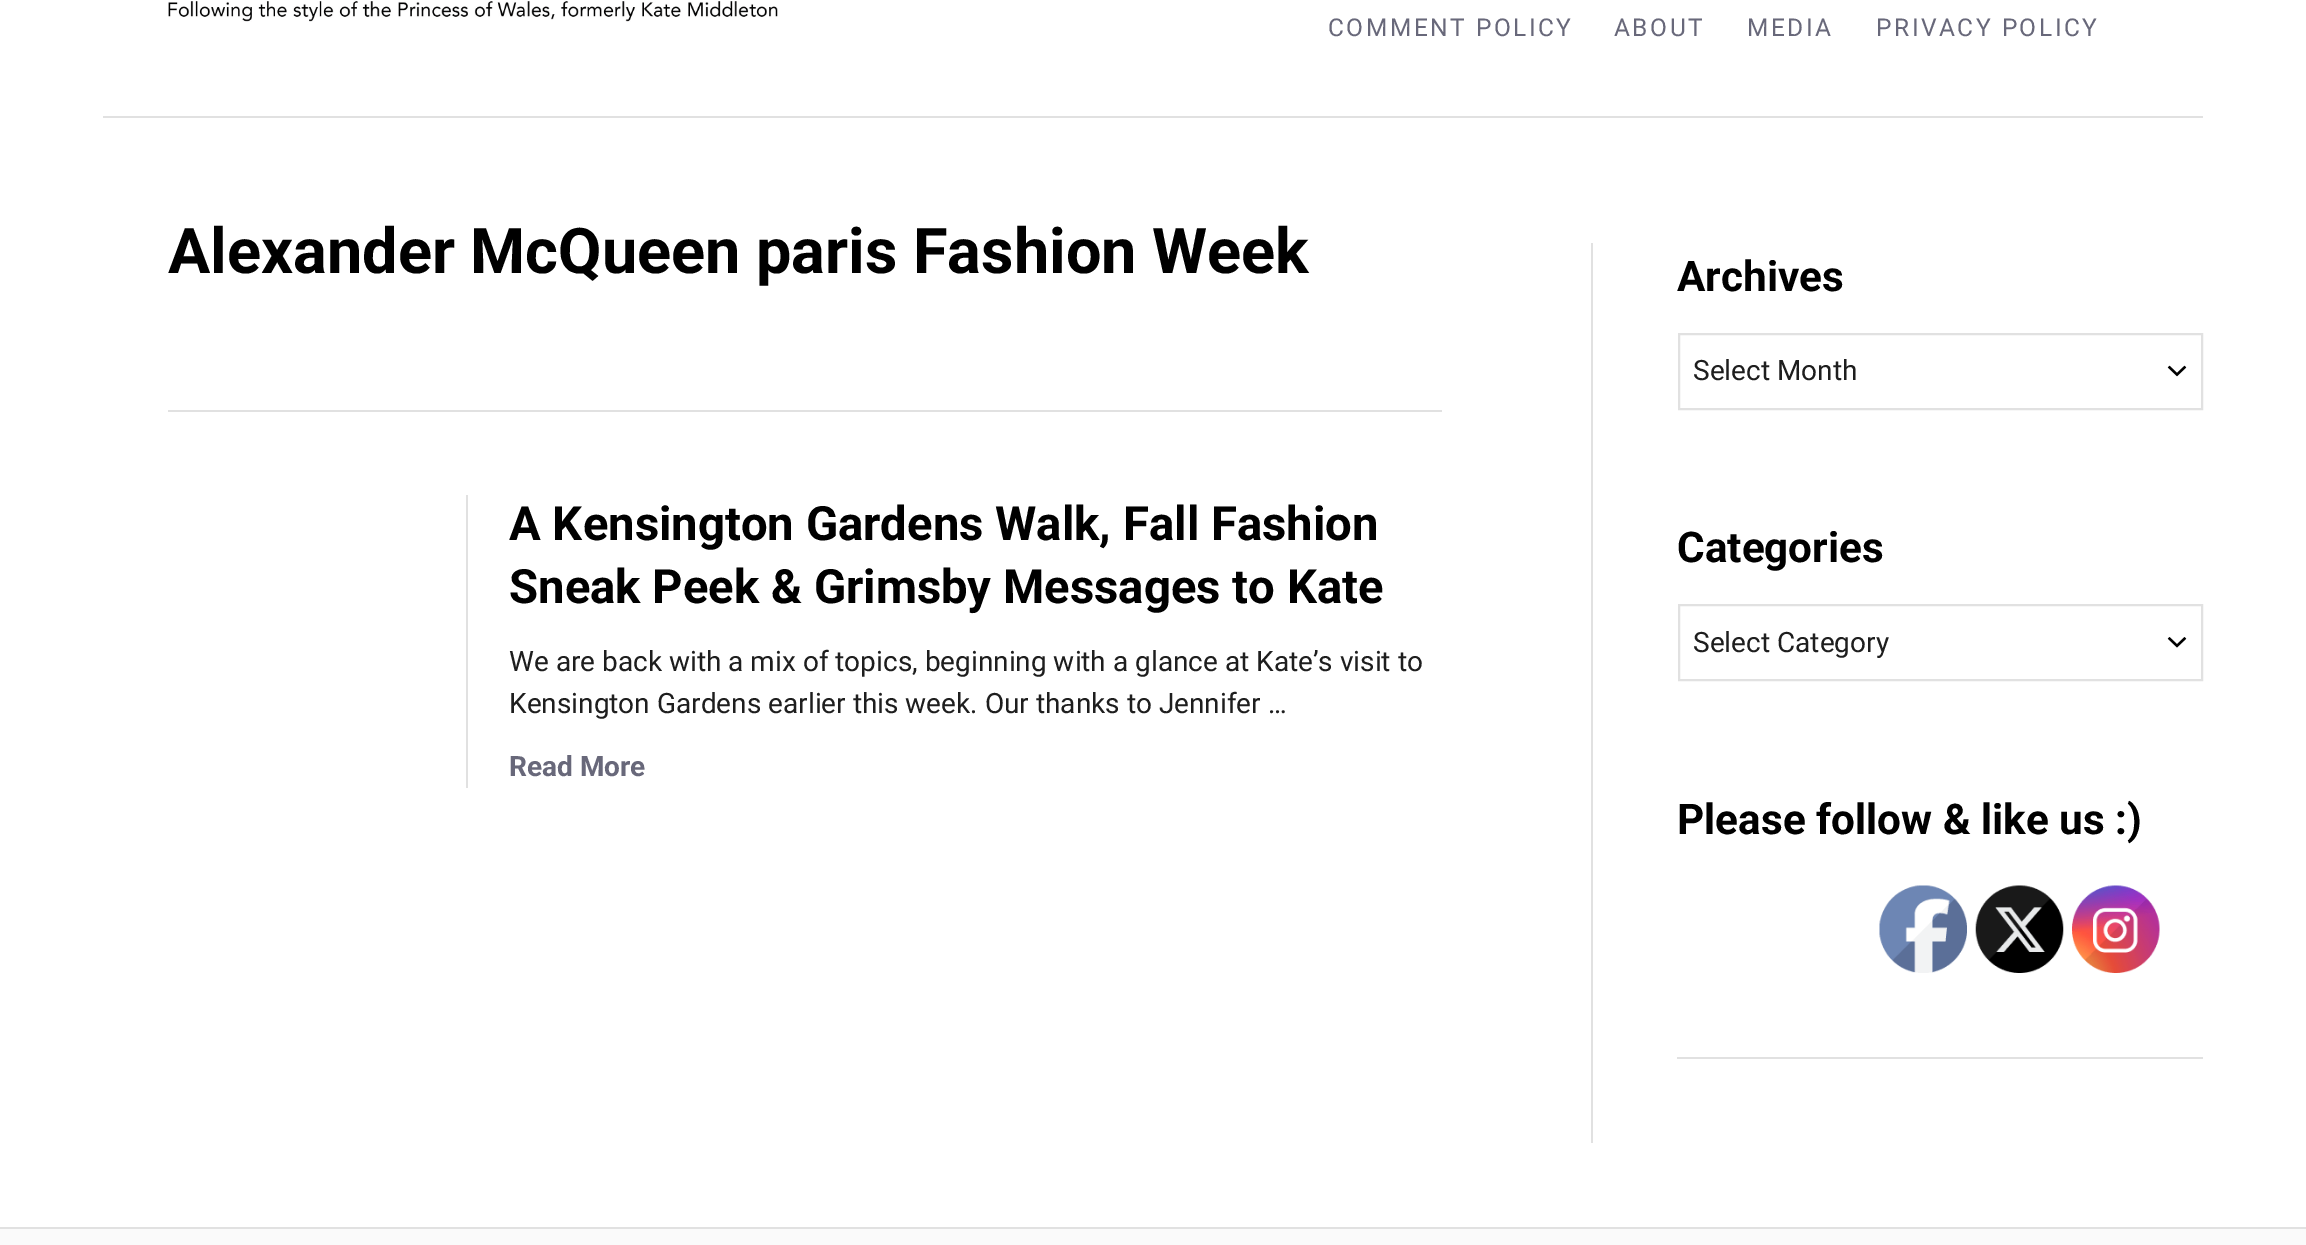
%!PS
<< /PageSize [2306 1245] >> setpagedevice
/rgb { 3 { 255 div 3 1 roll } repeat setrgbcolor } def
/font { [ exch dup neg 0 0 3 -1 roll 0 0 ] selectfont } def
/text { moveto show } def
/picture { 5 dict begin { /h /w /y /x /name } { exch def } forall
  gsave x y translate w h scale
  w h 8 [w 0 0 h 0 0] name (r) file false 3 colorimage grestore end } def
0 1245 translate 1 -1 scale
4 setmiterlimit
255 255 255 rgb
0 0 2306 1245 rectfill
225 225 225 rgb
103 116 2100 2 rectfill
(img_01.rgb) 168 1 610 21 picture
168 410 1274 2 rectfill
466 495 2 293 rectfill
1591 243 2 900 rectfill
(img_02.rgb) 2167 365 20 12 picture
2 setlinewidth
1679 334 523 75 rectstroke
(img_03.rgb) 2167 637 20 11 picture
1679 605 523 75 rectstroke
(img_04.rgb) 1879 885 88 88 picture
(img_05.rgb) 1975 885 89 88 picture
(img_06.rgb) 2072 885 88 88 picture
1677 1057 526 2 rectfill
250 250 250 rgb
0 1229 2306 16 rectfill
225 225 225 rgb
0 1227 2306 2 rectfill
/Roboto-Regular 24.5 font
104 104 122 rgb
1328 36 moveto 2.5 0 (COMMENT POLICY) ashow
1614 36 moveto 2.5 0 (ABOUT) ashow
1747 36 moveto 2.5 0 (MEDIA) ashow
1876 36 moveto 2.5 0 (PRIVACY POLICY) ashow
/Roboto-Bold 63 font
0 0 0 rgb
(Alexander McQueen paris Fashion Week) 168 273 text
/Roboto-Bold 47.25 font
(A Kensington Gardens Walk, Fall Fashion) 509 540 text
(Sneak Peek & Grimsby Messages to Kate) 509 603 text
/Roboto-Regular 28 font
30 30 30 rgb
(We are back with a mix of topics, beginning with a glance at Kate’s visit to) 509 671 text
(Kensington Gardens earlier this week. Our thanks to Jennifer …) 509 713 text
/Roboto-Bold 28 font
104 104 122 rgb
(Read More) 509 776 text
/Roboto-Bold 42.25 font
0 0 0 rgb
(Archives) 1677 291 text
/Roboto-Regular 28 font
30 30 30 rgb
(Select Month) 1693 380 text
/Roboto-Bold 42.25 font
0 0 0 rgb
(Categories) 1677 562 text
/Roboto-Regular 28 font
30 30 30 rgb
(Select Category) 1693 652 text
/Roboto-Bold 42.25 font
0 0 0 rgb
(Please follow & like us :\)) 1677 834 text
showpage
